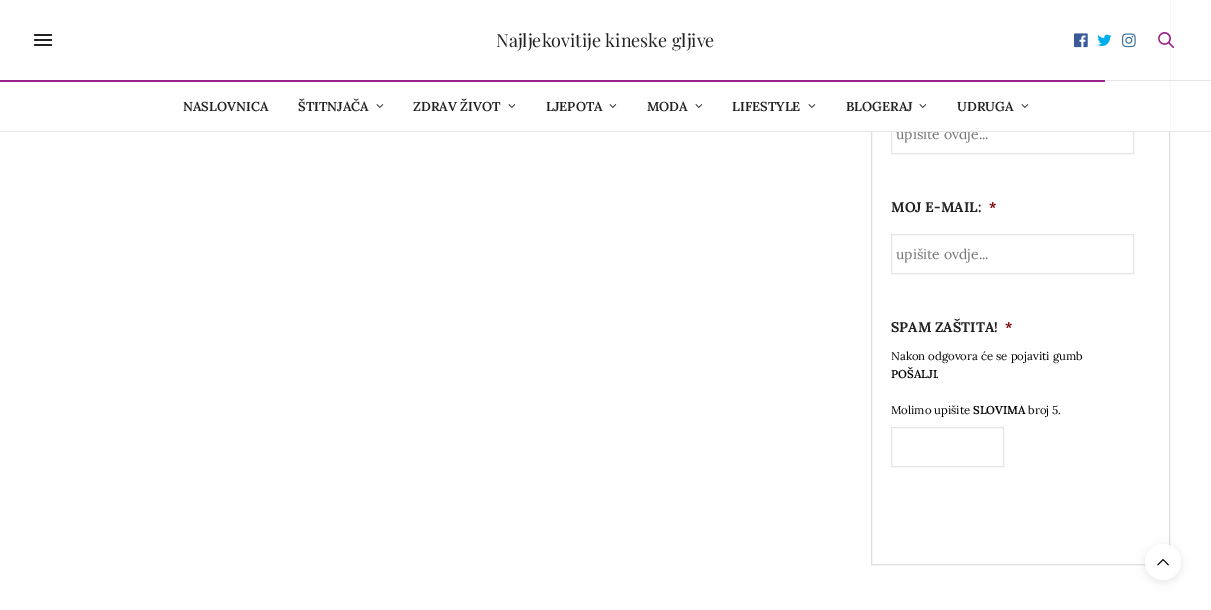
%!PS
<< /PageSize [1211 610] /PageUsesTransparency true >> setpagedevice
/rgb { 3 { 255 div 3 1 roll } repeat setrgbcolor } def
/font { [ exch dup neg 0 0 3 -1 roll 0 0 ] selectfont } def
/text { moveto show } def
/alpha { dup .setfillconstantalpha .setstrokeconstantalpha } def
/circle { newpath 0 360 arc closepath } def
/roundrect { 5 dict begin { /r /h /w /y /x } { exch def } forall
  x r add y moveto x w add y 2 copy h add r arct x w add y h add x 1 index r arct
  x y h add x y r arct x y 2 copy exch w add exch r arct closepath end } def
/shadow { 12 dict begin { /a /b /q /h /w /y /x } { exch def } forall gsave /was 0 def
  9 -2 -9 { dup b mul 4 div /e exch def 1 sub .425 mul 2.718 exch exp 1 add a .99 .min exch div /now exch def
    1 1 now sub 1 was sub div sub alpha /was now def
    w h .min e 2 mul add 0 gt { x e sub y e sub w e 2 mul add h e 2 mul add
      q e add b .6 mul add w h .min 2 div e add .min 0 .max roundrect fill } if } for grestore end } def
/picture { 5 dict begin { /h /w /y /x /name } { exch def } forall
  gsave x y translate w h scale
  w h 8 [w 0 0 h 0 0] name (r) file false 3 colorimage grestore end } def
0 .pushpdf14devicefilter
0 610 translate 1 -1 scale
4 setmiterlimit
255 255 255 rgb
0 0 1211 610 rectfill
34 34 34 rgb
34 34 18 2 1 roundrect fill
34 39 18 2 1 roundrect fill
34 44 18 2 1 roundrect fill
(img_05.rgb) 376 104 8 4 picture
(img_05.rgb) 508 104 8 4 picture
(img_05.rgb) 609 104 8 4 picture
(img_05.rgb) 695 104 8 4 picture
(img_05.rgb) 808 104 8 4 picture
222 222 222 rgb
871.5 -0.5 298 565 rectstroke
229 229 229 rgb
891.5 114.5 242 39 rectstroke
891.5 234.5 242 39 rectstroke
891.5 427.5 112 39 rectstroke
0 0 0 rgb
1145 546 36 36 18 4 0.1 shadow
255 255 255 rgb
1163 562 18 circle fill
(img_06.rgb) 1157 559 12 7 picture
/PlayfairDisplay-Regular 18 font
34 34 34 rgb
(Najljekovitije kineske gljive) 496 47 text
/Lora-SemiBold 13 font
(NASLOVNICA) 183 111 text
(ŠTITNJAČA) 298 111 text
(ZDRAV ŽIVOT) 413 111 text
(LJEPOTA) 546 111 text
(MODA) 647 111 text
(LIFESTYLE) 732 111 text
/Lora-Regular 14 font
118 118 118 rgb
(upišite ovdje...) 896 139 text
255 255 255 rgb
871 0 299 131 rectfill
(img_04.rgb) 1158 32 16 16 picture
(img_03.rgb) 1122 33 14 15 picture
(img_02.rgb) 1097 34 15 12 picture
(img_01.rgb) 1074 33 14 15 picture
(img_05.rgb) 1021 104 8 4 picture
/Lora-SemiBold 13 font
34 34 34 rgb
(UDRUGA) 957 111 text
(img_05.rgb) 919 104 8 4 picture
(BLOGERAJ) 846 111 text
153 36 136 rgb
0 80 1105 2 rectfill
230 230 230 rgb
1105 80 106 1 rectfill
0 131 1211 1 rectfill
/Lora-Bold 14 font
34 34 34 rgb
(MOJ E-MAIL:) 891 212 text
121 0 0 rgb
(*) 989 212 text
/Lora-Regular 14 font
118 118 118 rgb
(upišite ovdje...) 896 259 text
/Lora-Bold 14 font
34 34 34 rgb
(SPAM ZAŠTITA!) 891 332 text
121 0 0 rgb
(*) 1005 332 text
/Lora-Regular 11.4 font
0 0 0 rgb
(Nakon odgovora će se pojaviti gumb) 891 360 text
/Lora-SemiBold 11.4 font
(POŠALJI) 891 378 text
/Lora-Regular 11.4 font
(.) 936 378 text
(Molimo upišite) 891 414 text
/Lora-SemiBold 11.4 font
(SLOVIMA) 973 414 text
/Lora-Regular 11.4 font
(broj 5.) 1028 414 text
.poppdf14devicefilter showpage
